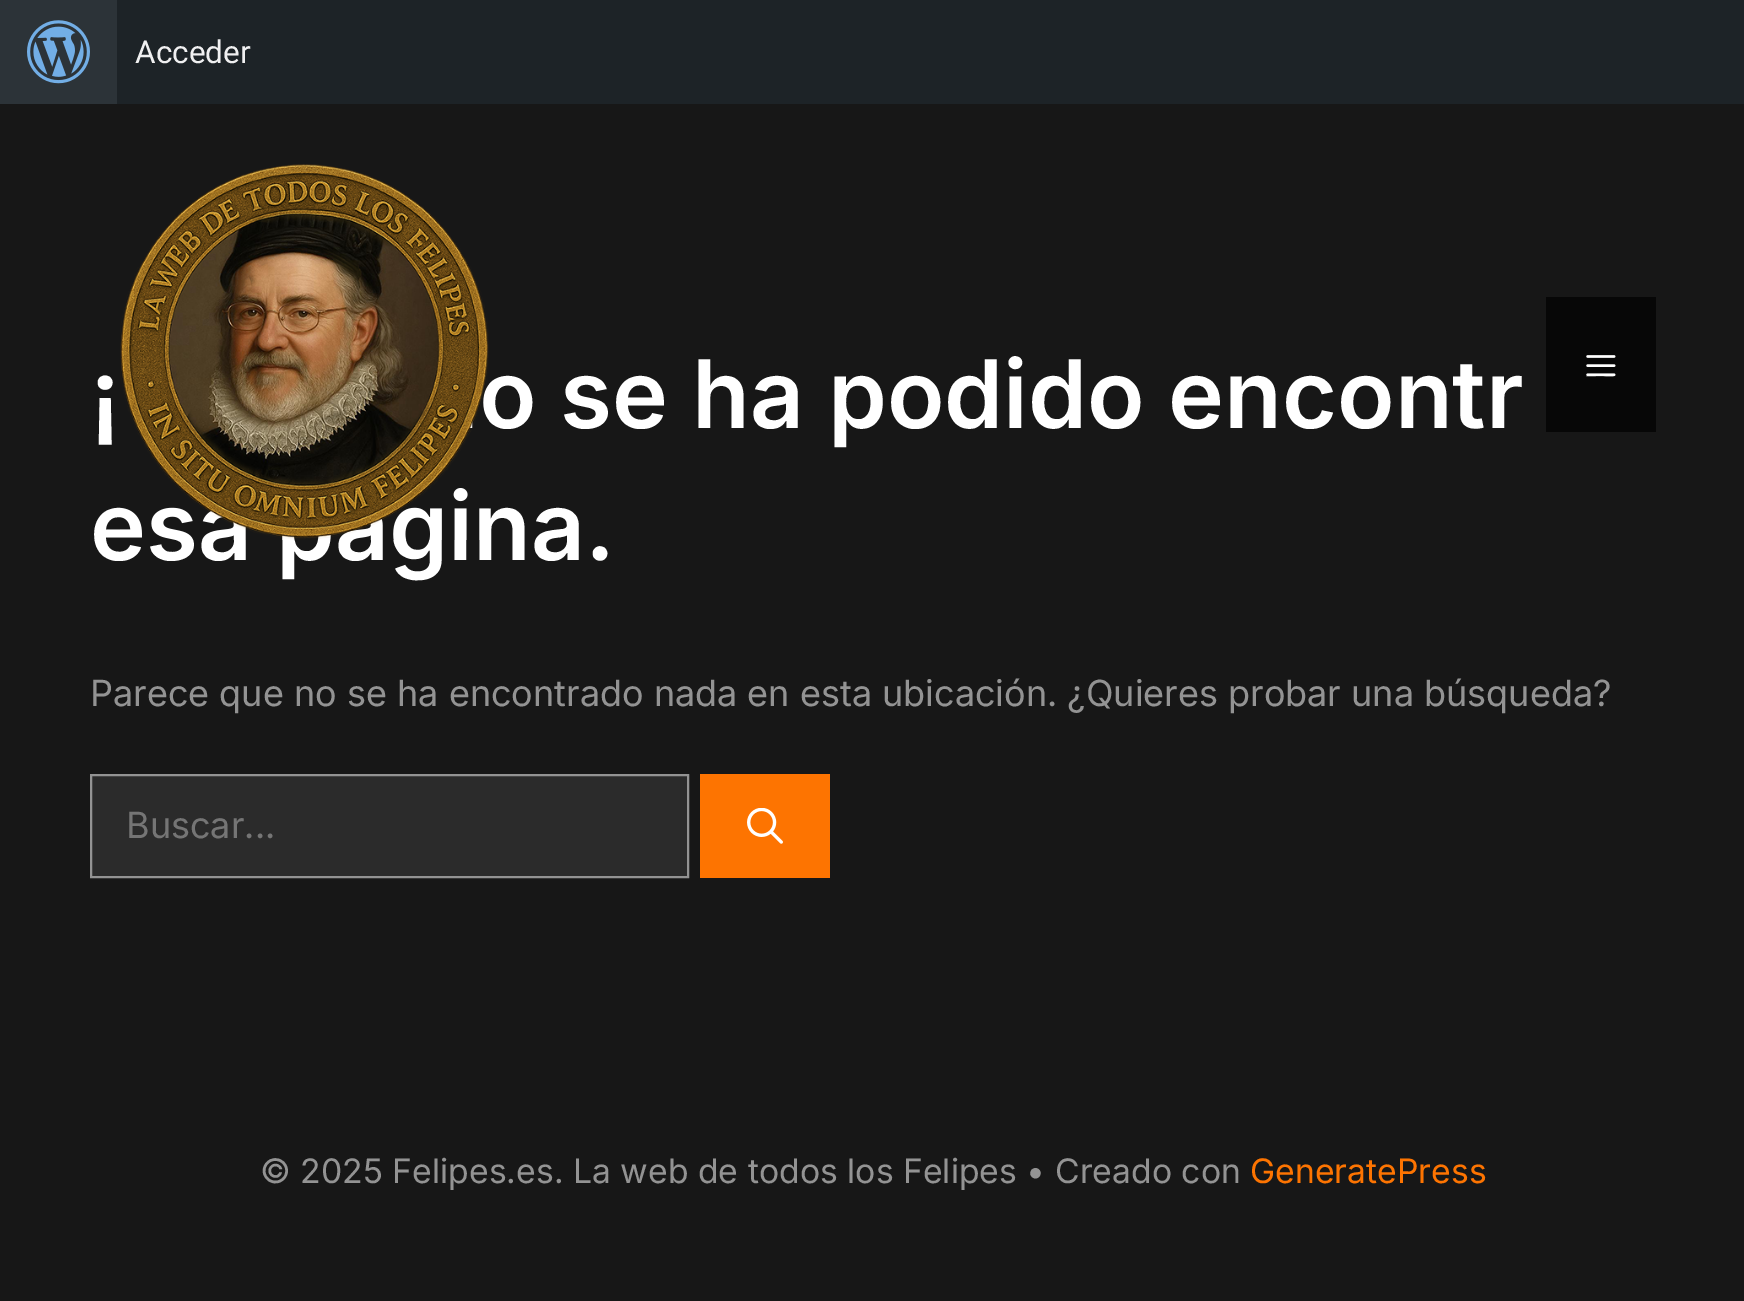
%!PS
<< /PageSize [1744 1301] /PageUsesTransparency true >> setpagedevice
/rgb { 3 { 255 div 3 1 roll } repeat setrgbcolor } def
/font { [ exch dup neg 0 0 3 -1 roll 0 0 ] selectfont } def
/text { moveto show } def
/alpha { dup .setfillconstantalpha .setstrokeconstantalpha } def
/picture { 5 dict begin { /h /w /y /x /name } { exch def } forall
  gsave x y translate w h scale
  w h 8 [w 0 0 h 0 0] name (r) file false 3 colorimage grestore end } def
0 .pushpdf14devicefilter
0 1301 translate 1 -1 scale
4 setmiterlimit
23 23 23 rgb
0 0 1744 1301 rectfill
29 35 39 rgb
117 0 1627 104 rectfill
44 51 56 rgb
0 0 117 104 rectfill
(img_01.rgb) 27 20 63 64 picture
0.7 alpha
0 0 0 rgb
1546 297 110 135 rectfill
1 alpha
(img_03.rgb) 1586 355 30 22 picture
43 43 43 rgb
91 775 moveto 597 0 rlineto 0 102 rlineto -597 0 rlineto closepath gsave fill grestore
147 147 147 rgb
2 setlinewidth
stroke
253 116 1 rgb
700 774 130 104 rectfill
(img_04.rgb) 747 808 36 36 picture
/Roboto-Regular 31.5 font
240 240 241 rgb
(Acceder) 135 63 text
/Inter-SemiBold 94.5 font
255 255 255 rgb
(¡) 90 428 text
(o se ha podido encontr) 479 428 text
(esa página.) 90 560 text
(img_02.rgb) 120 164 369 376 picture
/Inter-Regular 36 font
147 147 147 rgb
(Parece que no se ha encontrado nada en esta ubicación. ¿Quieres probar una búsqueda?) 90 706 text
117 117 117 rgb
(Buscar...) 126 838 text
/Inter-Regular 33.75 font
147 147 147 rgb
(© 2025 Felipes.es. La web de todos los Felipes • Creado con) 260 1183 text
253 116 1 rgb
(GeneratePress) 1250 1183 text
.poppdf14devicefilter showpage
